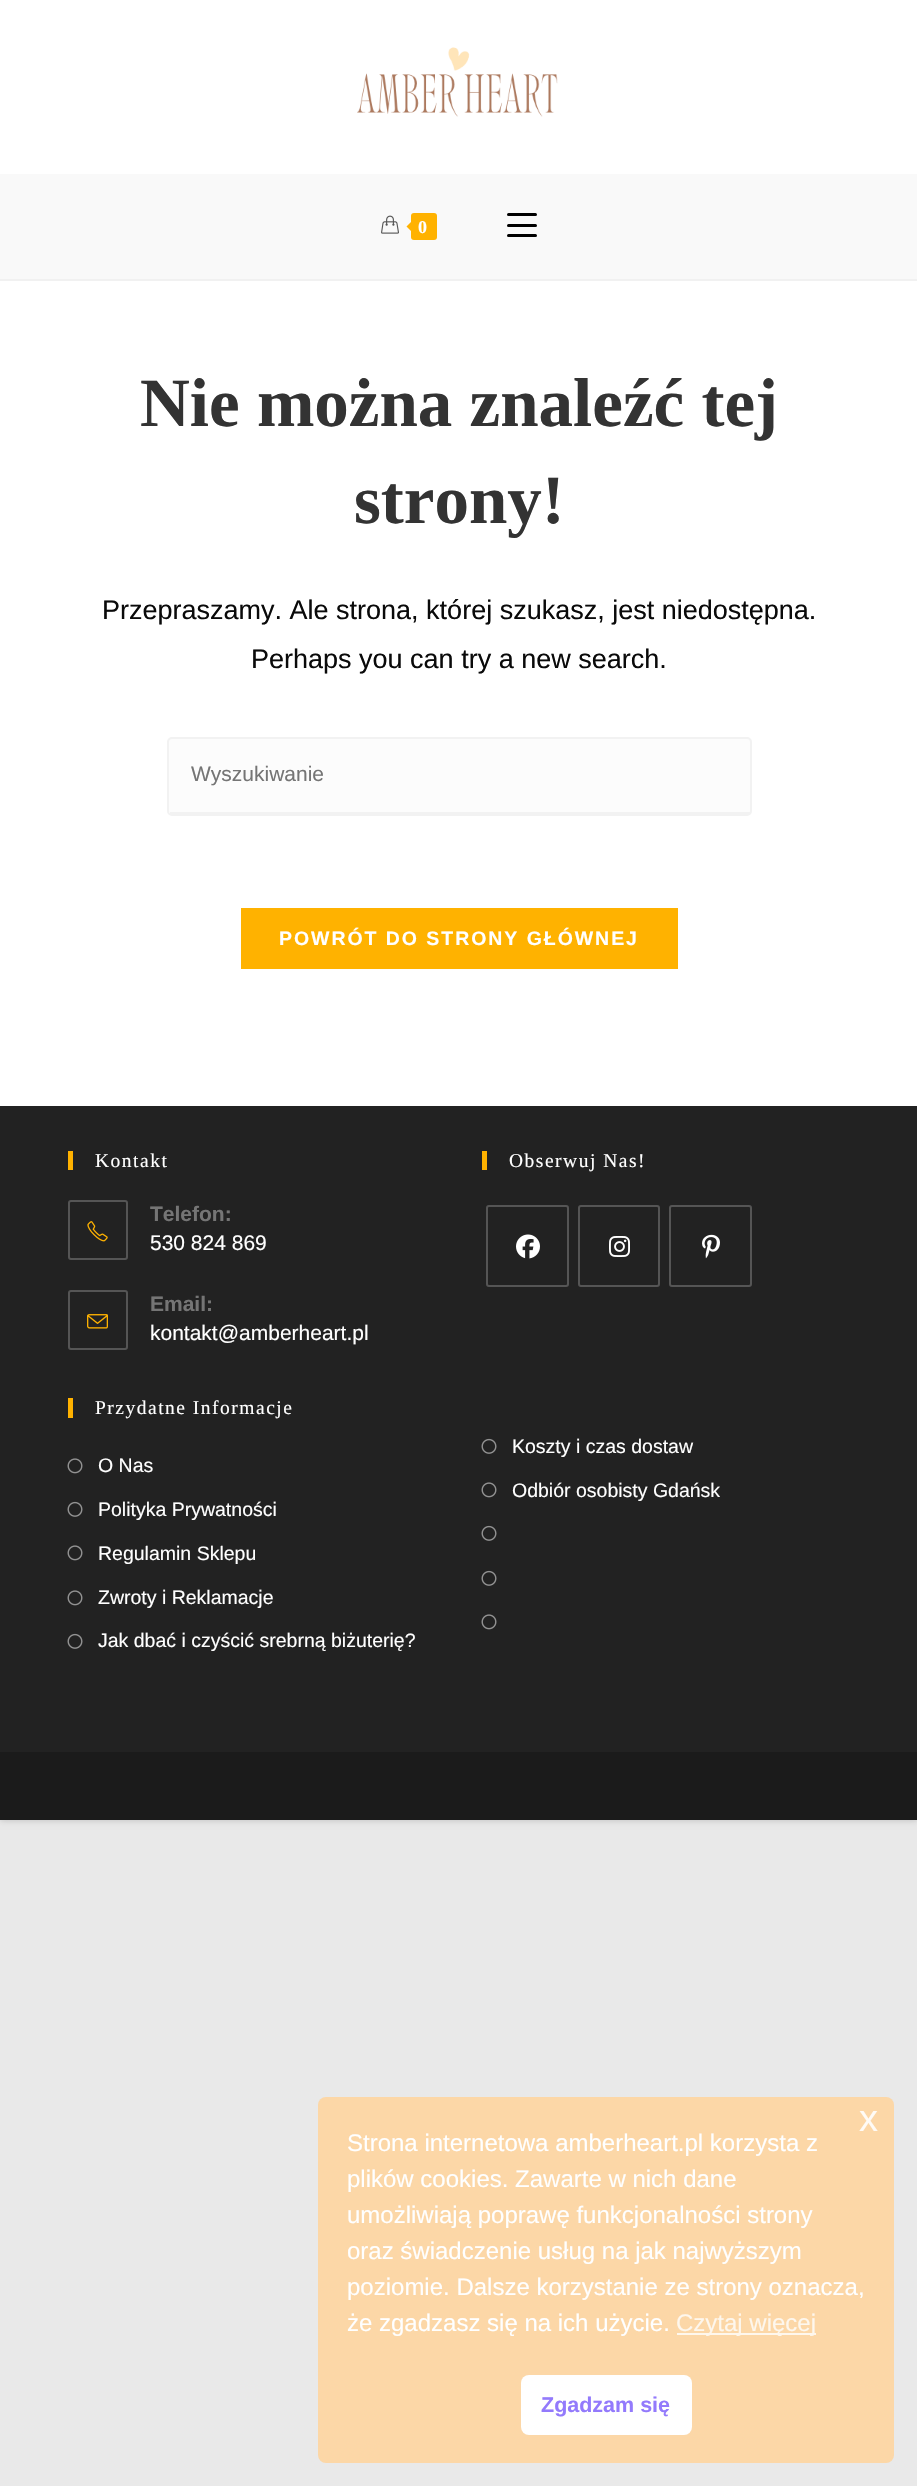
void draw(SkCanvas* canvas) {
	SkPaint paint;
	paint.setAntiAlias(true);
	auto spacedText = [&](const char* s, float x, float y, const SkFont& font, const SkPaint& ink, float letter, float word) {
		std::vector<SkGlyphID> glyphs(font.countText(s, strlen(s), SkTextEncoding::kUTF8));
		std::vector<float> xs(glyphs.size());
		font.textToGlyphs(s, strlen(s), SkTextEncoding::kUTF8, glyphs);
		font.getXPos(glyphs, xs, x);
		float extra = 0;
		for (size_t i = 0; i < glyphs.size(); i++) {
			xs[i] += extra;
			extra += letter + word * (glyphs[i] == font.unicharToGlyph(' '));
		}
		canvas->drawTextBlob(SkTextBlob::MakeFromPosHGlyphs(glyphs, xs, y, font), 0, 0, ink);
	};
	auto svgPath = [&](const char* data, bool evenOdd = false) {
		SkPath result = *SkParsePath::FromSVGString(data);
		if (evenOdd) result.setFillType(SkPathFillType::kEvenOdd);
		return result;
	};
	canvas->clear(0xffe9e9e9);
	paint.setColor(0x26000000);
	paint.setMaskFilter(SkMaskFilter::MakeBlur(kNormal_SkBlurStyle, 3));
	canvas->drawRect(SkRect::MakeXYWH(0, 2, 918, 1819), paint);
	paint.setMaskFilter(nullptr);
	paint.setColor(0xffffffff);
	canvas->drawRect(SkRect::MakeXYWH(0, 0, 917, 1106), paint);
	paint.setColor(0xfff1f1f1);
	canvas->drawRect(SkRect::MakeXYWH(0, 279, 917, 2), paint);
	canvas->drawImageRect(SkImages::DeferredFromEncodedData(SkData::MakeFromFileName("img1.png")), SkRect::MakeXYWH(357, 47, 201, 70), SkSamplingOptions());
	paint.setColor(0xfff9f9f9);
	canvas->drawRect(SkRect::MakeXYWH(0, 174, 917, 105), paint);
	canvas->drawImageRect(SkImages::DeferredFromEncodedData(SkData::MakeFromFileName("img2.png")), SkRect::MakeXYWH(381, 215, 18, 19), SkSamplingOptions());
	paint.setColor(0xffffb200);
	canvas->drawRoundRect(SkRect::MakeXYWH(411, 213, 26, 27), 3, 3, paint);
	canvas->drawPath(svgPath("M414 219V234L406.5 226.5Z"), paint);
	SkFont f1(fontMgr->matchFamilyStyle("Liberation Serif", SkFontStyle::Bold()), 18);
	f1.setSubpixel(true);
	paint.setColor(0xffffffff);
	spacedText("0", 418, 233, f1, paint, 1.5, 0);
	paint.setColor(0xff000000);
	canvas->drawRoundRect(SkRect::MakeXYWH(507, 234, 30, 3), 1.5, 1.5, paint);
	canvas->drawRoundRect(SkRect::MakeXYWH(507, 213, 30, 3), 1.5, 1.5, paint);
	canvas->drawRoundRect(SkRect::MakeXYWH(507, 224, 30, 3), 1.5, 1.5, paint);
	SkFont f2(fontMgr->matchFamilyStyle("Liberation Serif", SkFontStyle::Bold()), 69);
	f2.setSubpixel(true);
	paint.setColor(0xff333333);
	canvas->drawString("Nie można znaleźć tej", 140, 426, f2, paint);
	canvas->drawString("strony!", 354, 523, f2, paint);
	SkFont f3(fontMgr->matchFamilyStyle("Liberation Sans", SkFontStyle::Normal()), 27);
	f3.setSubpixel(true);
	paint.setColor(0xff0a0a0a);
	canvas->drawString("Przepraszamy. Ale strona, której szukasz, jest niedostępna.", 102, 619, f3, paint);
	canvas->drawString("Perhaps you can try a new search.", 251, 668, f3, paint);
	paint.setColor(0xfffcfcfc);
	canvas->drawPath(svgPath("M171 738H747C749 738 750 739 750 741V812H168V741C168 739 169 738 171 738Z"), paint);
	paint.setStroke(true);
	paint.setStrokeWidth(2);
	paint.setColor(0xfff2f2f2);
	canvas->drawRoundRect(SkRect::MakeXYWH(168, 738, 583, 77), 4, 4, paint);
	paint.setStroke(false);
	canvas->drawRect(SkRect::MakeXYWH(170, 812, 580, 2), paint);
	SkFont f4(fontMgr->matchFamilyStyle("Liberation Sans", SkFontStyle::Normal()), 21);
	f4.setSubpixel(true);
	paint.setColor(0xff757575);
	canvas->drawString("Wyszukiwanie", 191, 781, f4, paint);
	paint.setColor(0xffffb200);
	canvas->drawRect(SkRect::MakeXYWH(241, 908, 437, 61), paint);
	SkFont f5(fontMgr->matchFamilyStyle("Liberation Sans", SkFontStyle::Bold()), 19.5);
	f5.setSubpixel(true);
	paint.setColor(0xffffffff);
	spacedText("POWRÓT DO STRONY GŁÓWNEJ", 279, 945, f5, paint, 1.95, 0);
	paint.setColor(0xff222222);
	canvas->drawRect(SkRect::MakeXYWH(0, 1106, 917, 646), paint);
	paint.setColor(0xffffb200);
	canvas->drawRect(SkRect::MakeXYWH(68, 1151, 5, 19), paint);
	SkFont f6(fontMgr->matchFamilyStyle("Liberation Serif", SkFontStyle::Normal()), 19.5);
	f6.setSubpixel(true);
	paint.setColor(0xffffffff);
	spacedText("Kontakt", 95, 1167, f6, paint, 1.5, 0);
	paint.setStroke(true);
	paint.setColor(0xff555555);
	canvas->drawRoundRect(SkRect::MakeXYWH(69, 1201, 58, 58), 2, 2, paint);
	canvas->drawImageRect(SkImages::DeferredFromEncodedData(SkData::MakeFromFileName("img3.png")), SkRect::MakeXYWH(87, 1221, 21, 21), SkSamplingOptions());
	SkFont f7(fontMgr->matchFamilyStyle("Liberation Sans", SkFontStyle::Bold()), 21);
	f7.setSubpixel(true);
	paint.setStroke(false);
	paint.setColor(0xff757575);
	canvas->drawString("Telefon:", 150, 1221, f7, paint);
	paint.setColor(0xffffffff);
	canvas->drawString("530 824 869", 150, 1250, f4, paint);
	paint.setStroke(true);
	paint.setColor(0xff555555);
	canvas->drawRoundRect(SkRect::MakeXYWH(69, 1291, 58, 58), 2, 2, paint);
	canvas->drawImageRect(SkImages::DeferredFromEncodedData(SkData::MakeFromFileName("img4.png")), SkRect::MakeXYWH(87, 1314, 21, 15), SkSamplingOptions());
	paint.setStroke(false);
	paint.setColor(0xff757575);
	canvas->drawString("Email:", 150, 1311, f7, paint);
	paint.setColor(0xffffffff);
	canvas->drawString("kontakt@amberheart.pl", 150, 1340, f4, paint);
	paint.setColor(0xffffb200);
	canvas->drawRect(SkRect::MakeXYWH(482, 1151, 5, 19), paint);
	paint.setColor(0xffffffff);
	spacedText("Obserwuj Nas!", 509, 1167, f6, paint, 1.5, 0);
	paint.setStroke(true);
	paint.setColor(0xff555555);
	canvas->drawRoundRect(SkRect::MakeXYWH(487, 1206, 81, 80), 2, 2, paint);
	canvas->drawImageRect(SkImages::DeferredFromEncodedData(SkData::MakeFromFileName("img5.png")), SkRect::MakeXYWH(516, 1234, 24, 25), SkSamplingOptions());
	canvas->drawRoundRect(SkRect::MakeXYWH(579, 1206, 80, 80), 2, 2, paint);
	canvas->drawImageRect(SkImages::DeferredFromEncodedData(SkData::MakeFromFileName("img6.png")), SkRect::MakeXYWH(609, 1236, 21, 21), SkSamplingOptions());
	canvas->drawRoundRect(SkRect::MakeXYWH(670, 1206, 81, 80), 2, 2, paint);
	canvas->drawImageRect(SkImages::DeferredFromEncodedData(SkData::MakeFromFileName("img7.png")), SkRect::MakeXYWH(702, 1234, 18, 25), SkSamplingOptions());
	paint.setStroke(false);
	paint.setColor(0xffffb200);
	canvas->drawRect(SkRect::MakeXYWH(68, 1398, 5, 20), paint);
	paint.setColor(0xffffffff);
	spacedText("Przydatne Informacje", 95, 1414, f6, paint, 1.5, 0);
	canvas->drawImageRect(SkImages::DeferredFromEncodedData(SkData::MakeFromFileName("img8.png")), SkRect::MakeXYWH(67, 1458, 16, 16), SkSamplingOptions());
	SkFont f8(fontMgr->matchFamilyStyle("Liberation Sans", SkFontStyle::Normal()), 19.5);
	f8.setSubpixel(true);
	canvas->drawString("O Nas", 98, 1472, f8, paint);
	canvas->drawImageRect(SkImages::DeferredFromEncodedData(SkData::MakeFromFileName("img9.png")), SkRect::MakeXYWH(67, 1501, 16, 16), SkSamplingOptions());
	canvas->drawString("Polityka Prywatności", 98, 1516, f8, paint);
	canvas->drawImageRect(SkImages::DeferredFromEncodedData(SkData::MakeFromFileName("img8.png")), SkRect::MakeXYWH(67, 1545, 16, 16), SkSamplingOptions());
	canvas->drawString("Regulamin Sklepu", 98, 1560, f8, paint);
	canvas->drawImageRect(SkImages::DeferredFromEncodedData(SkData::MakeFromFileName("img8.png")), SkRect::MakeXYWH(67, 1590, 16, 16), SkSamplingOptions());
	canvas->drawString("Zwroty i Reklamacje", 98, 1604, f8, paint);
	canvas->drawImageRect(SkImages::DeferredFromEncodedData(SkData::MakeFromFileName("img9.png")), SkRect::MakeXYWH(67, 1633, 16, 16), SkSamplingOptions());
	canvas->drawString("Jak dbać i czyścić srebrną biżuterię?", 98, 1647, f8, paint);
	canvas->drawImageRect(SkImages::DeferredFromEncodedData(SkData::MakeFromFileName("img9.png")), SkRect::MakeXYWH(481, 1438, 16, 16), SkSamplingOptions());
	canvas->drawString("Koszty i czas dostaw", 512, 1453, f8, paint);
	canvas->drawImageRect(SkImages::DeferredFromEncodedData(SkData::MakeFromFileName("img8.png")), SkRect::MakeXYWH(481, 1482, 16, 16), SkSamplingOptions());
	canvas->drawString("Odbiór osobisty Gdańsk", 512, 1497, f8, paint);
	canvas->drawImageRect(SkImages::DeferredFromEncodedData(SkData::MakeFromFileName("img9.png")), SkRect::MakeXYWH(481, 1525, 16, 16), SkSamplingOptions());
	canvas->drawImageRect(SkImages::DeferredFromEncodedData(SkData::MakeFromFileName("img9.png")), SkRect::MakeXYWH(481, 1570, 16, 16), SkSamplingOptions());
	canvas->drawImageRect(SkImages::DeferredFromEncodedData(SkData::MakeFromFileName("img8.png")), SkRect::MakeXYWH(481, 1614, 16, 16), SkSamplingOptions());
	paint.setColor(0xff1b1b1b);
	canvas->drawRect(SkRect::MakeXYWH(0, 1752, 917, 68), paint);
	paint.setColor(0xfffcd7a7);
	canvas->drawRoundRect(SkRect::MakeXYWH(318, 2097, 576, 366), 8, 8, paint);
	SkFont f9(fontMgr->matchFamilyStyle("Liberation Sans", SkFontStyle::Normal()), 38);
	f9.setSubpixel(true);
	paint.setColor(0xfffffbf6);
	canvas->drawString("x", 859, 2131, f9, paint);
	SkFont f10(fontMgr->matchFamilyStyle("Liberation Sans", SkFontStyle::Normal()), 24);
	f10.setSubpixel(true);
	paint.setColor(0xffffffff);
	canvas->drawString("Strona internetowa amberheart.pl korzysta z", 347, 2151, f10, paint);
	canvas->drawString("plików cookies. Zawarte w nich dane", 347, 2187, f10, paint);
	canvas->drawString("umożliwiają poprawę funkcjonalności strony", 347, 2223, f10, paint);
	canvas->drawString("oraz świadczenie usług na jak najwyższym", 347, 2259, f10, paint);
	canvas->drawString("poziomie. Dalsze korzystanie ze strony oznacza,", 347, 2295, f10, paint);
	canvas->drawString("że zgadzasz się na ich użycie.", 347, 2331, f10, paint);
	paint.setColor(0xfffef7ed);
	canvas->drawRect(SkRect::MakeXYWH(677, 2333, 139, 2), paint);
	canvas->drawString("Czytaj więcej", 676, 2331, f10, paint);
	paint.setColor(0xffffffff);
	canvas->drawRoundRect(SkRect::MakeXYWH(521, 2375, 171, 60), 8, 8, paint);
	SkFont f11(fontMgr->matchFamilyStyle("Liberation Sans", SkFontStyle::Bold()), 21.5);
	f11.setSubpixel(true);
	paint.setColor(0xff937afc);
	canvas->drawString("Zgadzam się", 541, 2412, f11, paint);
}
